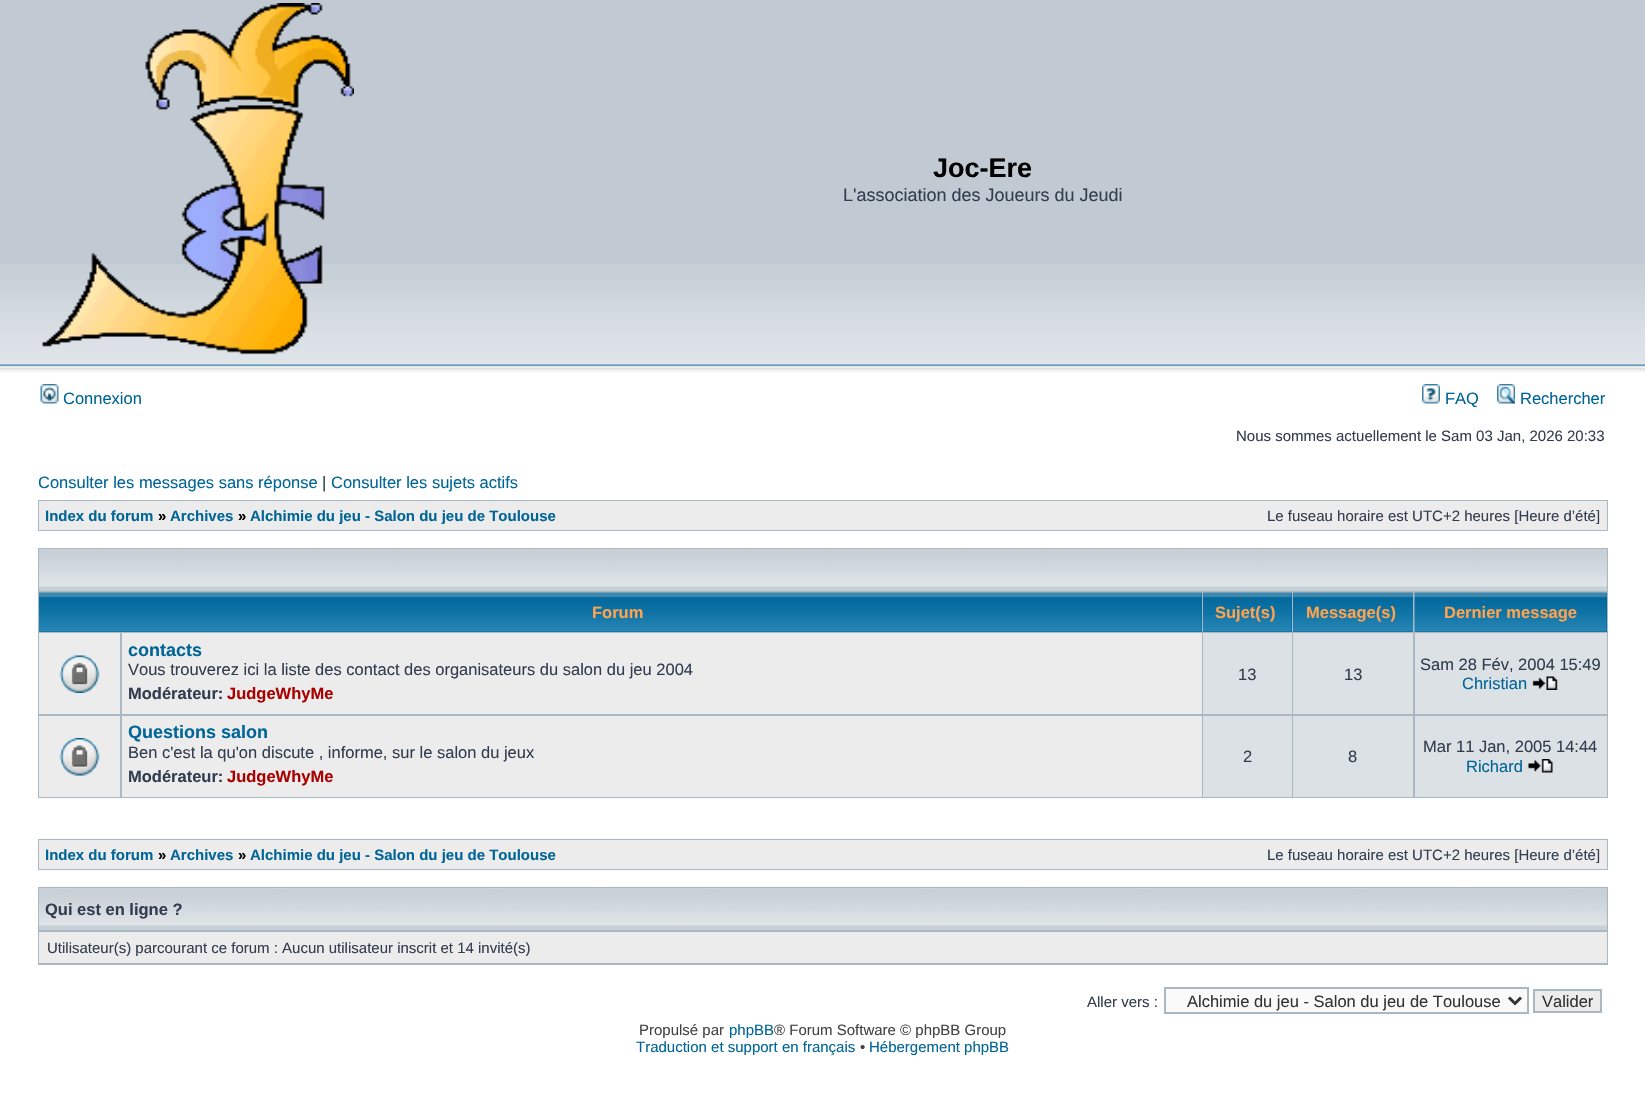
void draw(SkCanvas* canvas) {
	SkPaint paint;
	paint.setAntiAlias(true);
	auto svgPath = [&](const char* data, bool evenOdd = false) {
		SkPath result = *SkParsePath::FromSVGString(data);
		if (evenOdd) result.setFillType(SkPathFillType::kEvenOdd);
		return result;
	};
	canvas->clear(0xffffffff);
	paint.setColor(0xffc1cad2);
	canvas->drawRect(SkRect::MakeXYWH(0, 0, 1645, 264), paint);
	canvas->drawImageRect(SkImages::DeferredFromEncodedData(SkData::MakeFromFileName("img1.png")), SkRect::MakeXYWH(0, 264, 1645, 117), SkSamplingOptions());
	canvas->drawImageRect(SkImages::DeferredFromEncodedData(SkData::MakeFromFileName("img2.png")), SkRect::MakeXYWH(42, 3, 312, 352), SkSamplingOptions());
	SkFont f1(fontMgr->matchFamilyStyle("Liberation Sans", SkFontStyle::Bold()), 27);
	f1.setSubpixel(true);
	paint.setColor(0xff000000);
	canvas->drawString("Joc-Ere", 933, 177, f1, paint);
	SkFont f2(fontMgr->matchFamilyStyle("Liberation Sans", SkFontStyle::Normal()), 18);
	f2.setSubpixel(true);
	paint.setColor(0xff323d4f);
	canvas->drawString("L'association des Joueurs du Jeudi", 843, 201, f2, paint);
	canvas->drawImageRect(SkImages::DeferredFromEncodedData(SkData::MakeFromFileName("img3.png")), SkRect::MakeXYWH(40, 384, 19, 20), SkSamplingOptions());
	SkFont f3(fontMgr->matchFamilyStyle("Liberation Sans", SkFontStyle::Normal()), 16.5);
	f3.setSubpixel(true);
	paint.setColor(0xff006597);
	canvas->drawString("Connexion", 63, 404, f3, paint);
	canvas->drawImageRect(SkImages::DeferredFromEncodedData(SkData::MakeFromFileName("img4.png")), SkRect::MakeXYWH(1422, 384, 18, 20), SkSamplingOptions());
	canvas->drawString("FAQ", 1445, 404, f3, paint);
	canvas->drawImageRect(SkImages::DeferredFromEncodedData(SkData::MakeFromFileName("img5.png")), SkRect::MakeXYWH(1497, 384, 18, 20), SkSamplingOptions());
	canvas->drawString("Rechercher", 1520, 404, f3, paint);
	SkFont f4(fontMgr->matchFamilyStyle("Liberation Sans", SkFontStyle::Normal()), 15);
	f4.setSubpixel(true);
	paint.setColor(0xff323d4f);
	canvas->drawString("Nous sommes actuellement le Sam 03 Jan, 2026 20:33", 1236, 441, f4, paint);
	paint.setColor(0xff006597);
	canvas->drawString("Consulter les messages sans réponse", 38, 488, f3, paint);
	paint.setColor(0xff323d4f);
	canvas->drawString("|", 322, 488, f3, paint);
	paint.setColor(0xff006597);
	canvas->drawString("Consulter les sujets actifs", 331, 488, f3, paint);
	paint.setColor(0xffa9b8c2);
	canvas->drawRect(SkRect::MakeXYWH(38, 500, 1570, 31), paint);
	paint.setColor(0xffececec);
	canvas->drawRect(SkRect::MakeXYWH(39, 501, 1568, 29), paint);
	SkFont f5(fontMgr->matchFamilyStyle("Liberation Sans", SkFontStyle::Bold()), 15);
	f5.setSubpixel(true);
	paint.setColor(0xff006597);
	canvas->drawString("Index du forum", 45, 521, f5, paint);
	paint.setColor(0xff000000);
	canvas->drawString("»", 158, 521, f5, paint);
	paint.setColor(0xff006597);
	canvas->drawString("Archives", 170, 521, f5, paint);
	paint.setColor(0xff000000);
	canvas->drawString("»", 238, 521, f5, paint);
	paint.setColor(0xff006597);
	canvas->drawString("Alchimie du jeu - Salon du jeu de Toulouse", 250, 521, f5, paint);
	paint.setColor(0xff323d4f);
	canvas->drawString("Le fuseau horaire est UTC+2 heures [Heure d’été]", 1267, 521, f4, paint);
	paint.setColor(0xffa9b8c2);
	canvas->drawRect(SkRect::MakeXYWH(38, 548, 1570, 250), paint);
	paint.setColor(0xffc7d0d7);
	canvas->drawRect(SkRect::MakeXYWH(39, 549, 1568, 42), paint);
	canvas->drawImageRect(SkImages::DeferredFromEncodedData(SkData::MakeFromFileName("img6.png")), SkRect::MakeXYWH(39, 549, 1568, 38), SkSamplingOptions());
	paint.setColor(0xff006699);
	canvas->drawRect(SkRect::MakeXYWH(39, 593, 1163, 39), paint);
	canvas->drawImageRect(SkImages::DeferredFromEncodedData(SkData::MakeFromFileName("img7.png")), SkRect::MakeXYWH(39, 592, 1163, 40), SkSamplingOptions());
	SkFont f6(fontMgr->matchFamilyStyle("Liberation Sans", SkFontStyle::Bold()), 16.5);
	f6.setSubpixel(true);
	paint.setColor(0xffffa34f);
	canvas->drawString("Forum", 592, 618, f6, paint);
	paint.setColor(0xff006699);
	canvas->drawRect(SkRect::MakeXYWH(1203, 593, 89, 39), paint);
	canvas->drawImageRect(SkImages::DeferredFromEncodedData(SkData::MakeFromFileName("img8.png")), SkRect::MakeXYWH(1203, 592, 89, 40), SkSamplingOptions());
	paint.setColor(0xffffa34f);
	canvas->drawString("Sujet(s)", 1215, 618, f6, paint);
	paint.setColor(0xff006699);
	canvas->drawRect(SkRect::MakeXYWH(1293, 631, 120, 1), paint);
	canvas->drawImageRect(SkImages::DeferredFromEncodedData(SkData::MakeFromFileName("img9.png")), SkRect::MakeXYWH(1293, 592, 120, 40), SkSamplingOptions());
	paint.setColor(0xffffa34f);
	canvas->drawString("Message(s)", 1306, 618, f6, paint);
	paint.setColor(0xff006699);
	canvas->drawRect(SkRect::MakeXYWH(1415, 593, 192, 39), paint);
	canvas->drawImageRect(SkImages::DeferredFromEncodedData(SkData::MakeFromFileName("img10.png")), SkRect::MakeXYWH(1414, 592, 193, 40), SkSamplingOptions());
	paint.setColor(0xffffa34f);
	canvas->drawString("Dernier message", 1444, 618, f6, paint);
	paint.setColor(0xffececec);
	canvas->drawRect(SkRect::MakeXYWH(39, 633, 81, 81), paint);
	canvas->drawImageRect(SkImages::DeferredFromEncodedData(SkData::MakeFromFileName("img11.png")), SkRect::MakeXYWH(59, 655, 41, 38), SkSamplingOptions());
	canvas->drawRect(SkRect::MakeXYWH(122, 633, 1080, 81), paint);
	SkFont f7(fontMgr->matchFamilyStyle("Liberation Sans", SkFontStyle::Bold()), 18);
	f7.setSubpixel(true);
	paint.setColor(0xff006597);
	canvas->drawString("contacts", 128, 656, f7, paint);
	paint.setColor(0xff323d4f);
	canvas->drawString("Vous trouverez ici la liste des contact des organisateurs du salon du jeu 2004", 128, 675, f3, paint);
	canvas->drawString("Modérateur:", 128, 699, f6, paint);
	paint.setColor(0xffaa0000);
	canvas->drawString("JudgeWhyMe", 227, 699, f6, paint);
	paint.setColor(0xffdce1e5);
	canvas->drawRect(SkRect::MakeXYWH(1203, 633, 89, 81), paint);
	paint.setColor(0xff323d4f);
	canvas->drawString("13", 1238, 680, f3, paint);
	paint.setColor(0xffdce1e5);
	canvas->drawRect(SkRect::MakeXYWH(1293, 633, 120, 81), paint);
	paint.setColor(0xff323d4f);
	canvas->drawString("13", 1344, 680, f3, paint);
	paint.setColor(0xffdce1e5);
	canvas->drawRect(SkRect::MakeXYWH(1415, 633, 192, 81), paint);
	paint.setColor(0xff323d4f);
	canvas->drawString("Sam 28 Fév, 2004 15:49", 1420, 670, f3, paint);
	paint.setColor(0xff006597);
	canvas->drawString("Christian", 1462, 689, f3, paint);
	canvas->drawImageRect(SkImages::DeferredFromEncodedData(SkData::MakeFromFileName("img12.png")), SkRect::MakeXYWH(1532, 676, 26, 14), SkSamplingOptions());
	paint.setColor(0xffececec);
	canvas->drawRect(SkRect::MakeXYWH(39, 716, 81, 81), paint);
	canvas->drawImageRect(SkImages::DeferredFromEncodedData(SkData::MakeFromFileName("img13.png")), SkRect::MakeXYWH(59, 738, 41, 38), SkSamplingOptions());
	canvas->drawRect(SkRect::MakeXYWH(122, 716, 1080, 81), paint);
	paint.setColor(0xff006597);
	canvas->drawString("Questions salon", 128, 738, f7, paint);
	paint.setColor(0xff323d4f);
	canvas->drawString("Ben c'est la qu'on discute , informe, sur le salon du jeux", 128, 758, f3, paint);
	canvas->drawString("Modérateur:", 128, 782, f6, paint);
	paint.setColor(0xffaa0000);
	canvas->drawString("JudgeWhyMe", 227, 782, f6, paint);
	paint.setColor(0xffdce1e5);
	canvas->drawRect(SkRect::MakeXYWH(1203, 716, 89, 81), paint);
	paint.setColor(0xff323d4f);
	canvas->drawString("2", 1243, 762, f3, paint);
	paint.setColor(0xffdce1e5);
	canvas->drawRect(SkRect::MakeXYWH(1293, 716, 120, 81), paint);
	paint.setColor(0xff323d4f);
	canvas->drawString("8", 1348, 762, f3, paint);
	paint.setColor(0xffdce1e5);
	canvas->drawRect(SkRect::MakeXYWH(1415, 716, 192, 81), paint);
	paint.setColor(0xff323d4f);
	canvas->drawString("Mar 11 Jan, 2005 14:44", 1423, 752, f3, paint);
	paint.setColor(0xff006597);
	canvas->drawString("Richard", 1466, 772, f3, paint);
	canvas->drawImageRect(SkImages::DeferredFromEncodedData(SkData::MakeFromFileName("img14.png")), SkRect::MakeXYWH(1528, 759, 25, 14), SkSamplingOptions());
	paint.setColor(0xffa9b8c2);
	canvas->drawRect(SkRect::MakeXYWH(38, 839, 1570, 31), paint);
	paint.setColor(0xffececec);
	canvas->drawRect(SkRect::MakeXYWH(39, 840, 1568, 29), paint);
	paint.setColor(0xff006597);
	canvas->drawString("Index du forum", 45, 860, f5, paint);
	paint.setColor(0xff000000);
	canvas->drawString("»", 158, 860, f5, paint);
	paint.setColor(0xff006597);
	canvas->drawString("Archives", 170, 860, f5, paint);
	paint.setColor(0xff000000);
	canvas->drawString("»", 238, 860, f5, paint);
	paint.setColor(0xff006597);
	canvas->drawString("Alchimie du jeu - Salon du jeu de Toulouse", 250, 860, f5, paint);
	paint.setColor(0xff323d4f);
	canvas->drawString("Le fuseau horaire est UTC+2 heures [Heure d’été]", 1267, 860, f4, paint);
	paint.setColor(0xffa9b8c2);
	canvas->drawRect(SkRect::MakeXYWH(38, 887, 1570, 78), paint);
	paint.setColor(0xffc7d0d7);
	canvas->drawRect(SkRect::MakeXYWH(39, 888, 1568, 42), paint);
	canvas->drawImageRect(SkImages::DeferredFromEncodedData(SkData::MakeFromFileName("img6.png")), SkRect::MakeXYWH(39, 888, 1568, 38), SkSamplingOptions());
	paint.setColor(0xff323d4f);
	canvas->drawString("Qui est en ligne ?", 45, 915, f6, paint);
	paint.setColor(0xffececec);
	canvas->drawRect(SkRect::MakeXYWH(39, 932, 1568, 31), paint);
	paint.setColor(0xff323d4f);
	canvas->drawString("Utilisateur(s) parcourant ce forum : Aucun utilisateur inscrit et 14 invité(s)", 47, 953, f4, paint);
	canvas->drawString("Aller vers :", 1087, 1007, f4, paint);
	paint.setColor(0xfffafafa);
	canvas->drawRect(SkRect::MakeXYWH(1165, 988, 363, 25), paint);
	paint.setStroke(true);
	paint.setStrokeWidth(2);
	paint.setColor(0xffa9b8c2);
	canvas->drawRect(SkRect::MakeXYWH(1165, 988, 363, 25), paint);
	paint.setStrokeWidth(3);
	paint.setColor(0xff333333);
	canvas->drawPath(svgPath("M1509 997.5L1515 1003.5L1521 997.5"), paint);
	paint.setStroke(false);
	canvas->drawString("Alchimie du jeu - Salon du jeu de Toulouse", 1187, 1007, f3, paint);
	paint.setColor(0xffececec);
	canvas->drawRect(SkRect::MakeXYWH(1534, 990, 67, 22), paint);
	paint.setStroke(true);
	paint.setStrokeWidth(2);
	paint.setColor(0xffa9b8c2);
	canvas->drawRect(SkRect::MakeXYWH(1534, 990, 67, 22), paint);
	paint.setStroke(false);
	paint.setColor(0xff333333);
	canvas->drawString("Valider", 1542, 1007, f3, paint);
	paint.setColor(0xff444444);
	canvas->drawString("Propulsé par", 639, 1035, f4, paint);
	paint.setColor(0xff006597);
	canvas->drawString("phpBB", 729, 1035, f4, paint);
	paint.setColor(0xff444444);
	canvas->drawString("® Forum Software © phpBB Group", 774, 1035, f4, paint);
	paint.setColor(0xff006597);
	canvas->drawString("Traduction et support en français", 636, 1052, f4, paint);
	paint.setColor(0xff444444);
	canvas->drawString("•", 860, 1052, f4, paint);
	paint.setColor(0xff006597);
	canvas->drawString("Hébergement phpBB", 869, 1052, f4, paint);
}
